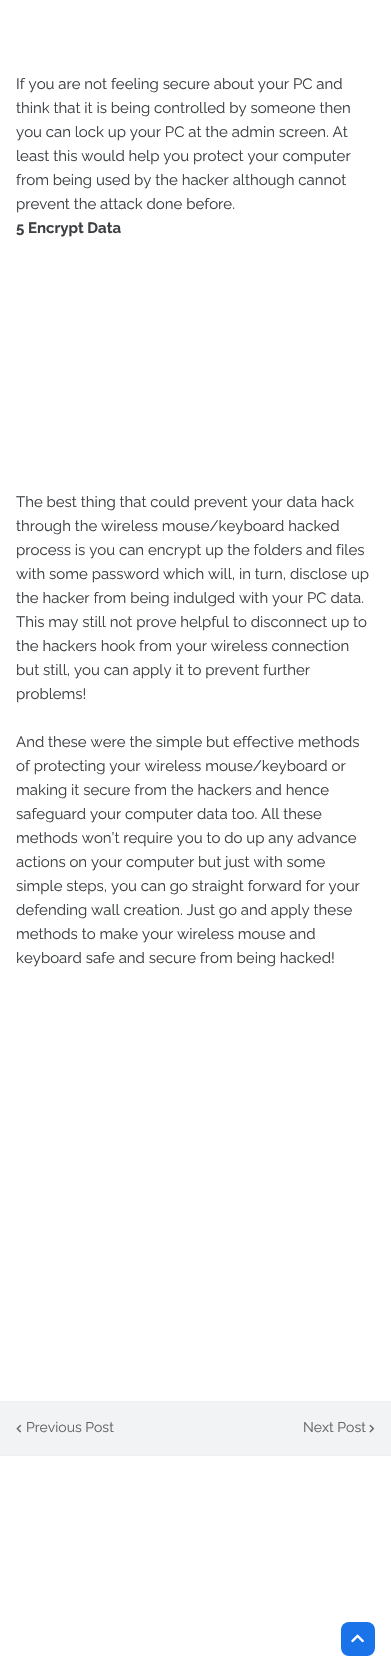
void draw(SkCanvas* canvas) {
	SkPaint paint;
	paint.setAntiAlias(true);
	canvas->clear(0xfff1f3f4);
	paint.setColor(0xffffffff);
	canvas->drawRect(SkRect::MakeXYWH(0, 0, 391, 1401), paint);
	paint.setColor(0xfff0f0f0);
	canvas->drawRect(SkRect::MakeXYWH(0, 1401, 391, 1), paint);
	SkFont f1(fontMgr->matchFamilyStyle("Raleway", SkFontStyle::Normal()), 15);
	f1.setSubpixel(true);
	paint.setColor(0xff3c4043);
	canvas->drawString("If you are not feeling secure about your PC and", 16, 89, f1, paint);
	canvas->drawString("think that it is being controlled by someone then", 16, 113, f1, paint);
	canvas->drawString("you can lock up your PC at the admin screen. At", 16, 137, f1, paint);
	canvas->drawString("least this would help you protect your computer", 16, 161, f1, paint);
	canvas->drawString("from being used by the hacker although cannot", 16, 185, f1, paint);
	canvas->drawString("prevent the attack done before.", 16, 209, f1, paint);
	SkFont f2(fontMgr->matchFamilyStyle("Raleway", SkFontStyle::Bold()), 15);
	f2.setSubpixel(true);
	canvas->drawString("5 Encrypt Data", 16, 233, f2, paint);
	canvas->drawString("The best thing that could prevent your data hack", 16, 507, f1, paint);
	canvas->drawString("through the wireless mouse/keyboard hacked", 16, 531, f1, paint);
	canvas->drawString("process is you can encrypt up the folders and files", 16, 555, f1, paint);
	canvas->drawString("with some password which will, in turn, disclose up", 16, 579, f1, paint);
	canvas->drawString("the hacker from being indulged with your PC data.", 16, 603, f1, paint);
	canvas->drawString("This may still not prove helpful to disconnect up to", 16, 627, f1, paint);
	canvas->drawString("the hackers hook from your wireless connection", 16, 651, f1, paint);
	canvas->drawString("but still, you can apply it to prevent further", 16, 675, f1, paint);
	canvas->drawString("problems!", 16, 699, f1, paint);
	canvas->drawString("And these were the simple but effective methods", 16, 747, f1, paint);
	canvas->drawString("of protecting your wireless mouse/keyboard or", 16, 771, f1, paint);
	canvas->drawString("making it secure from the hackers and hence", 16, 795, f1, paint);
	canvas->drawString("safeguard your computer data too. All these", 16, 819, f1, paint);
	canvas->drawString("methods won’t require you to do up any advance", 16, 843, f1, paint);
	canvas->drawString("actions on your computer but just with some", 16, 867, f1, paint);
	canvas->drawString("simple steps, you can go straight forward for your", 16, 891, f1, paint);
	canvas->drawString("defending wall creation. Just go and apply these", 16, 915, f1, paint);
	canvas->drawString("methods to make your wireless mouse and", 16, 939, f1, paint);
	canvas->drawString("keyboard safe and secure from being hacked!", 16, 963, f1, paint);
	canvas->drawImageRect(SkImages::DeferredFromEncodedData(SkData::MakeFromFileName("img1.png")), SkRect::MakeXYWH(16, 1424, 6, 9), SkSamplingOptions());
	SkFont f3(fontMgr->matchFamilyStyle("Raleway", SkFontStyle::Normal()), 14);
	f3.setSubpixel(true);
	paint.setColor(0xff636466);
	canvas->drawString("Previous Post", 26, 1432, f3, paint);
	canvas->drawString("Next Post", 303, 1432, f3, paint);
	canvas->drawImageRect(SkImages::DeferredFromEncodedData(SkData::MakeFromFileName("img2.png")), SkRect::MakeXYWH(369, 1424, 6, 9), SkSamplingOptions());
	paint.setColor(0xffffffff);
	canvas->drawRect(SkRect::MakeXYWH(0, 1456, 391, 216), paint);
	paint.setColor(0xfff0f0f0);
	canvas->drawRect(SkRect::MakeXYWH(0, 1455, 391, 1), paint);
	paint.setColor(0xff1a73e8);
	canvas->drawRoundRect(SkRect::MakeXYWH(341, 1622, 34, 34), 8, 8, paint);
	canvas->drawImageRect(SkImages::DeferredFromEncodedData(SkData::MakeFromFileName("img3.png")), SkRect::MakeXYWH(351, 1634, 13, 9), SkSamplingOptions());
}
